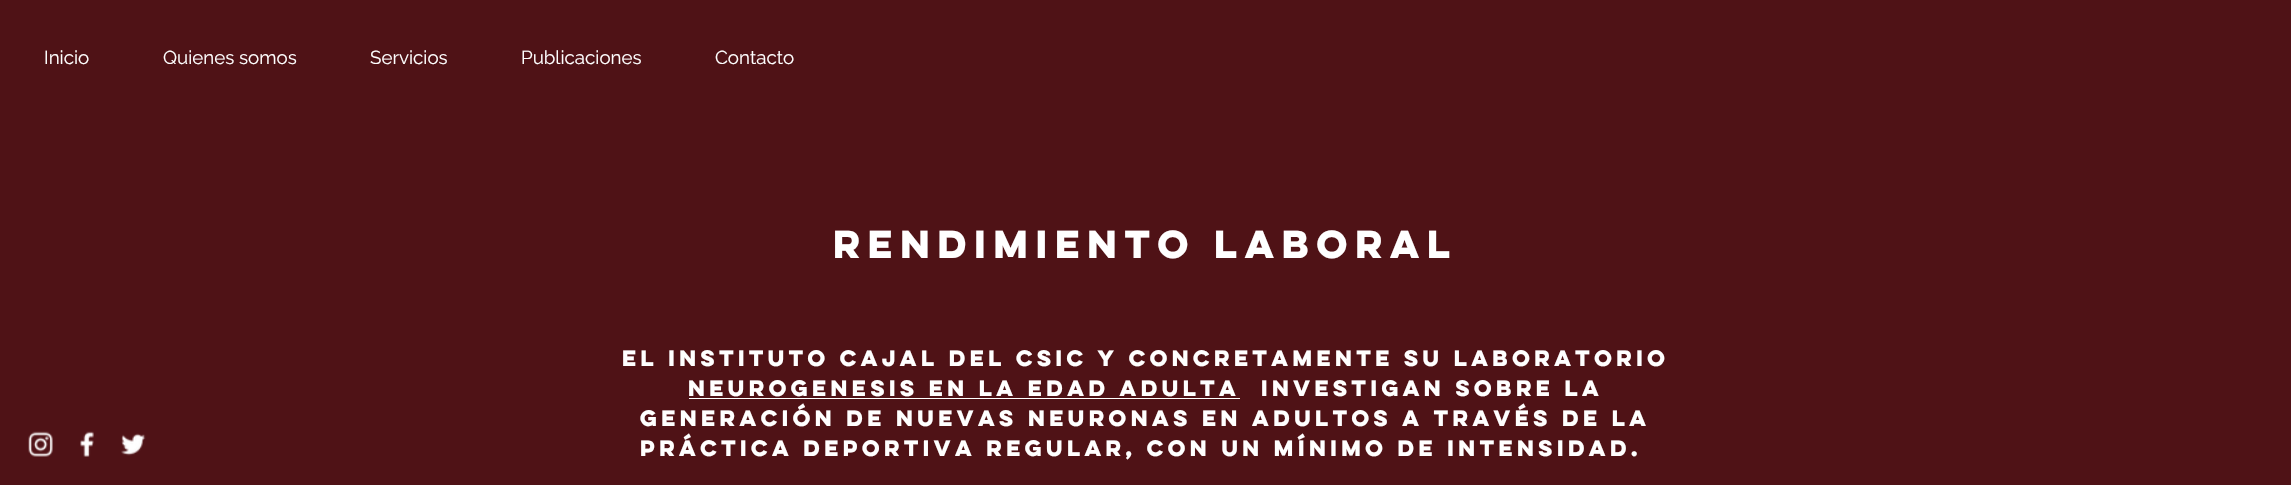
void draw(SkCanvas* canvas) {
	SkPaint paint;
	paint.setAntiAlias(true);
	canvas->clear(0xff4f1216);
	SkFont f1(fontMgr->matchFamilyStyle("Raleway", SkFontStyle::Normal()), 18.75);
	f1.setSubpixel(true);
	paint.setColor(0xffffffff);
	canvas->drawString("Inicio", 44, 64, f1, paint);
	canvas->drawString("Quienes somos", 163, 64, f1, paint);
	canvas->drawString("Servicios", 370, 64, f1, paint);
	canvas->drawString("Publicaciones", 521, 64, f1, paint);
	canvas->drawString("Contacto", 715, 64, f1, paint);
	canvas->drawImageRect(SkImages::DeferredFromEncodedData(SkData::MakeFromFileName("img1.png")), SkRect::MakeXYWH(28, 431, 25, 26), SkSamplingOptions());
	canvas->drawImageRect(SkImages::DeferredFromEncodedData(SkData::MakeFromFileName("img2.png")), SkRect::MakeXYWH(80, 431, 14, 26), SkSamplingOptions());
	canvas->drawImageRect(SkImages::DeferredFromEncodedData(SkData::MakeFromFileName("img3.png")), SkRect::MakeXYWH(121, 433, 25, 23), SkSamplingOptions());
	SkFont f2(fontMgr->matchFamilyStyle("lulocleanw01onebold", SkFontStyle::Bold()), 35);
	f2.setSubpixel(true);
	canvas->drawString("RENDIMIENTO LABORAL", 833, 258, f2, paint);
	SkFont f3(fontMgr->matchFamilyStyle("lulocleanw01onebold", SkFontStyle::Bold()), 20);
	f3.setSubpixel(true);
	canvas->drawString("El Instituto Cajal del CSIC y concretamente su laboratorio", 622, 366, f3, paint);
	canvas->drawString("Neurogenesis en la Edad Adulta", 688, 396, f3, paint);
	canvas->drawRect(SkRect::MakeXYWH(689, 398, 551, 1), paint);
	canvas->drawString("investigan sobre la", 1261, 396, f3, paint);
	canvas->drawString("generación de nuevas neuronas en adultos a través de la", 640, 426, f3, paint);
	canvas->drawString("práctica deportiva regular, con un mínimo de intensidad.", 640, 456, f3, paint);
}
